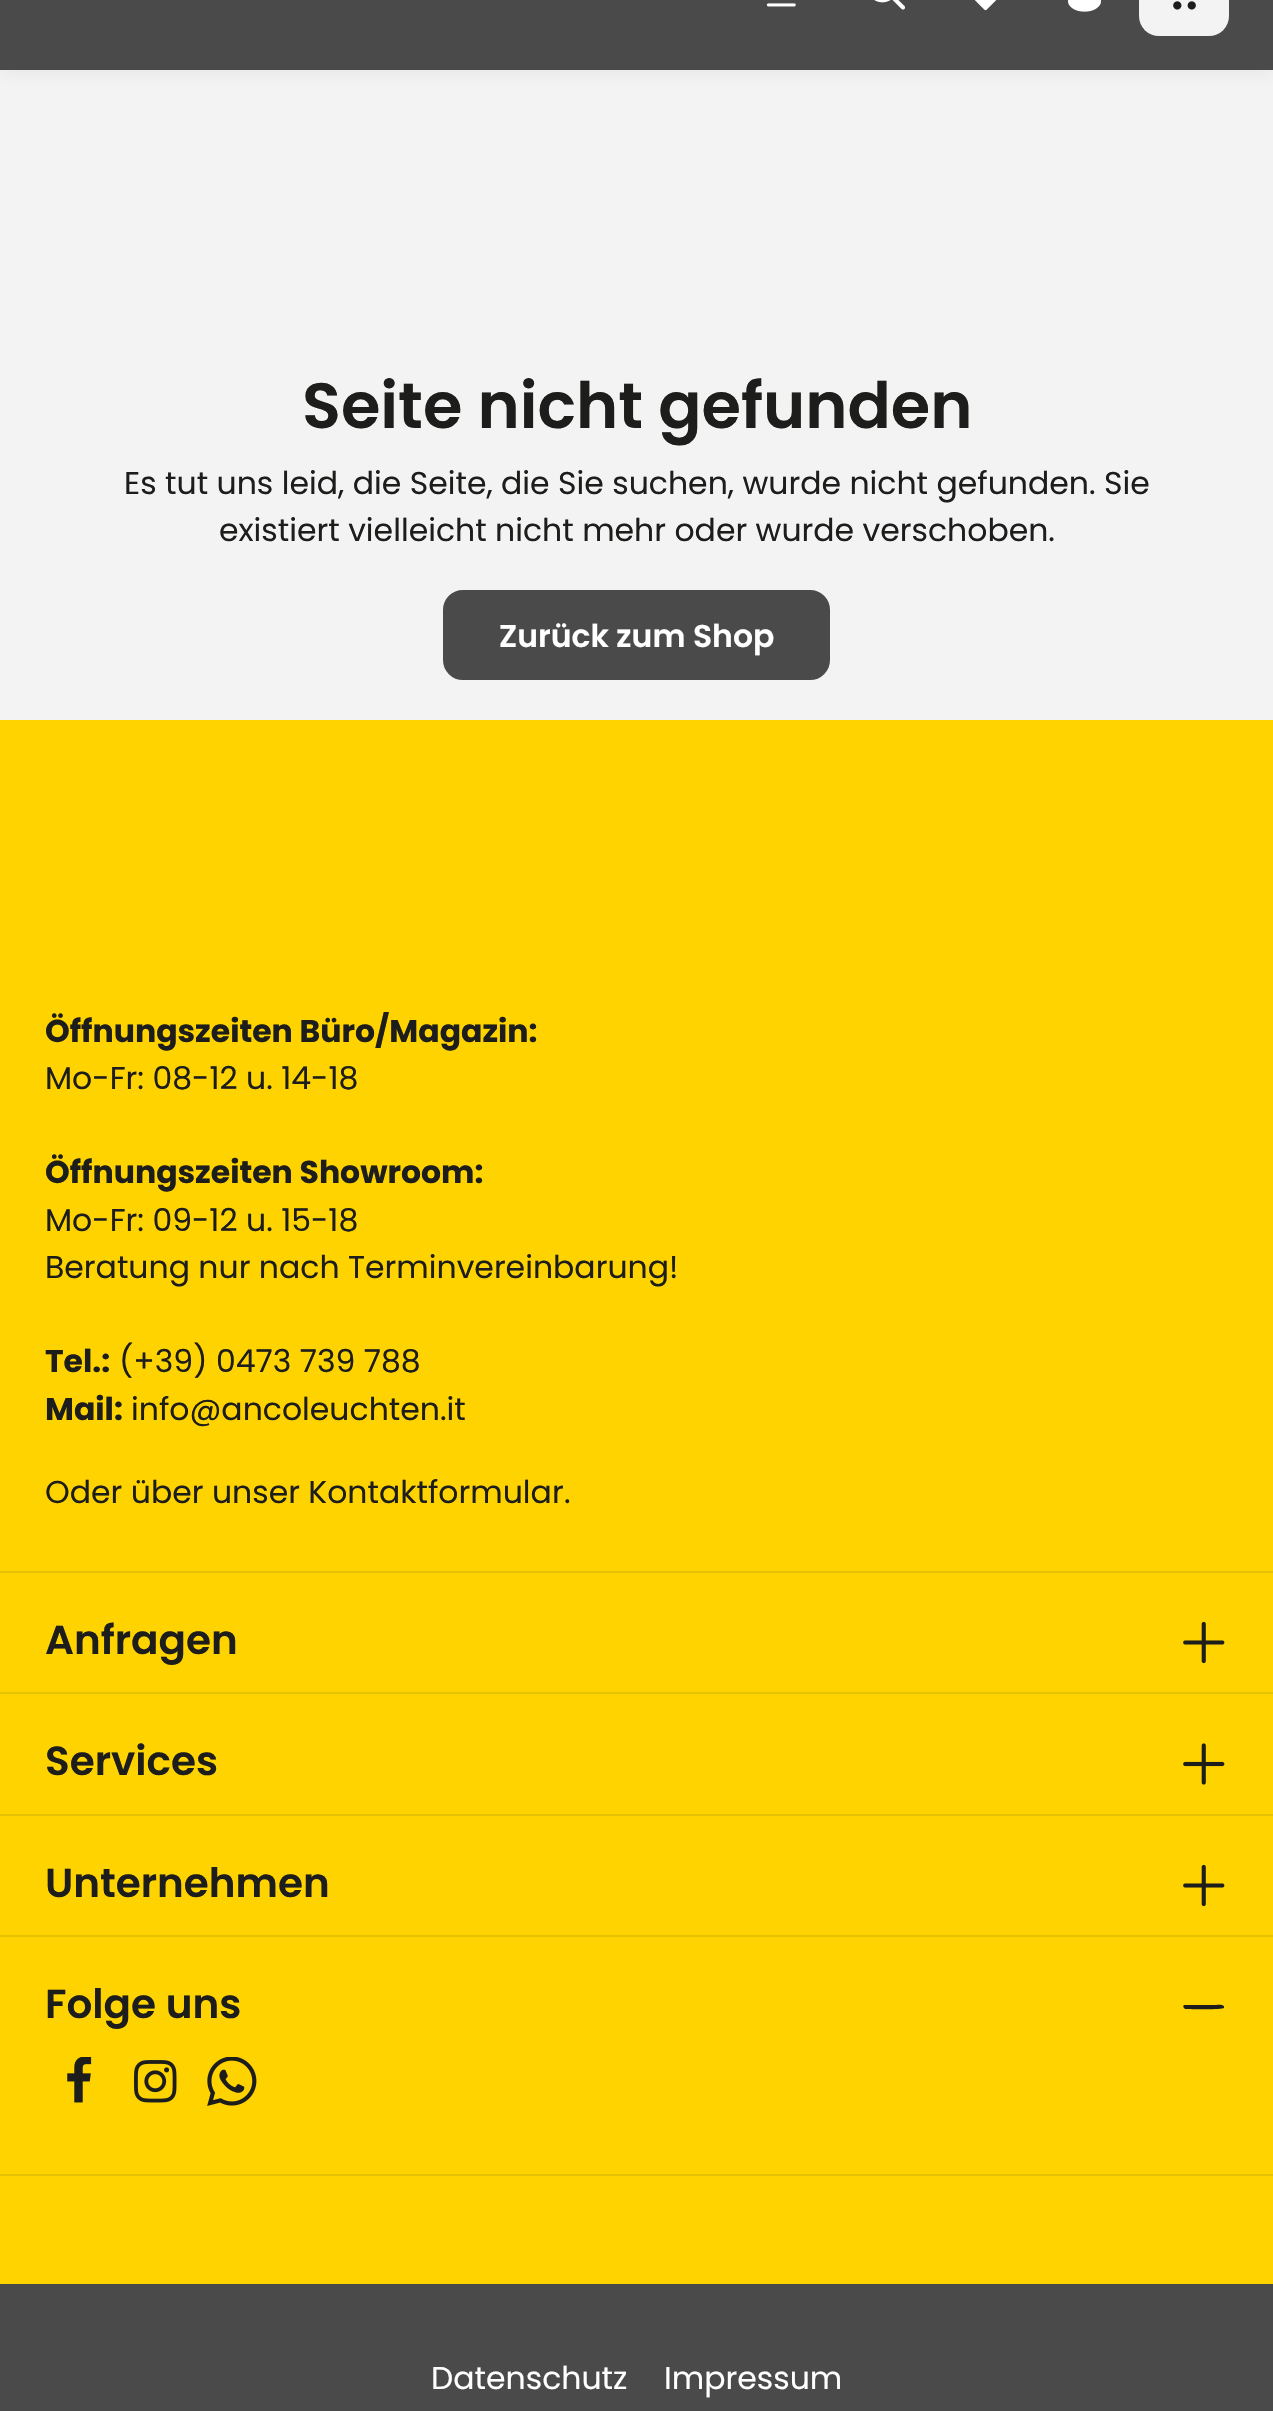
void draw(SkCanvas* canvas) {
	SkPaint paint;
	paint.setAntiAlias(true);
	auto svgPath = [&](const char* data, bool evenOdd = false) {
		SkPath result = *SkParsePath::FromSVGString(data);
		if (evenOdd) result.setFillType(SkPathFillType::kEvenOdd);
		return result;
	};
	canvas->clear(0xfff3f3f3);
	paint.setColor(0x1216181d);
	paint.setMaskFilter(SkMaskFilter::MakeBlur(kNormal_SkBlurStyle, 11));
	canvas->drawRect(SkRect::MakeXYWH(0, -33, 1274, 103), paint);
	paint.setMaskFilter(nullptr);
	paint.setColor(0xff4a4a4a);
	canvas->drawRect(SkRect::MakeXYWH(0, 0, 1273, 70), paint);
	canvas->drawImageRect(SkImages::DeferredFromEncodedData(SkData::MakeFromFileName("img1.png")), SkRect::MakeXYWH(766, 3, 30, 4), SkSamplingOptions());
	canvas->drawImageRect(SkImages::DeferredFromEncodedData(SkData::MakeFromFileName("img2.png")), SkRect::MakeXYWH(874, 0, 31, 10), SkSamplingOptions());
	canvas->drawImageRect(SkImages::DeferredFromEncodedData(SkData::MakeFromFileName("img3.png")), SkRect::MakeXYWH(974, 0, 23, 11), SkSamplingOptions());
	canvas->drawImageRect(SkImages::DeferredFromEncodedData(SkData::MakeFromFileName("img4.png")), SkRect::MakeXYWH(1068, 0, 33, 12), SkSamplingOptions());
	paint.setColor(0xfff3f3f3);
	canvas->drawRoundRect(SkRect::MakeXYWH(1139, -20, 90, 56), 20, 20, paint);
	canvas->drawImageRect(SkImages::DeferredFromEncodedData(SkData::MakeFromFileName("img5.png")), SkRect::MakeXYWH(1173, 1, 23, 9), SkSamplingOptions());
	SkFont f1(fontMgr->matchFamilyStyle("Poppins", SkFontStyle(600, SkFontStyle::kNormal_Width, SkFontStyle::kUpright_Slant)), 63.9);
	f1.setSubpixel(true);
	paint.setColor(0xff1d1d1c);
	canvas->drawString("Seite nicht gefunden", 302, 428, f1, paint);
	SkFont f2(fontMgr->matchFamilyStyle("Poppins", SkFontStyle::Normal()), 31.5);
	f2.setSubpixel(true);
	canvas->drawString("Es tut uns leid, die Seite, die Sie suchen, wurde nicht gefunden. Sie", 124, 494, f2, paint);
	canvas->drawString("existiert vielleicht nicht mehr oder wurde verschoben.", 219, 541, f2, paint);
	paint.setColor(0xff4a4a4a);
	canvas->drawRoundRect(SkRect::MakeXYWH(444, 591, 385, 88), 19, 19, paint);
	paint.setStroke(true);
	paint.setStrokeWidth(2);
	canvas->drawRoundRect(SkRect::MakeXYWH(444, 591, 385, 88), 19, 19, paint);
	SkFont f3(fontMgr->matchFamilyStyle("Poppins", SkFontStyle(600, SkFontStyle::kNormal_Width, SkFontStyle::kUpright_Slant)), 31.5);
	f3.setSubpixel(true);
	paint.setStroke(false);
	paint.setColor(0xffffffff);
	canvas->drawString("Zurück zum Shop", 499, 647, f3, paint);
	paint.setColor(0xfffed300);
	canvas->drawRect(SkRect::MakeXYWH(0, 720, 1273, 1564), paint);
	paint.setColor(0xffe7c103);
	canvas->drawRect(SkRect::MakeXYWH(0, 1571, 1273, 2), paint);
	SkFont f4(fontMgr->matchFamilyStyle("Poppins", SkFontStyle::Bold()), 31.5);
	f4.setSubpixel(true);
	paint.setColor(0xff1d1d1c);
	canvas->drawString("Öffnungszeiten Büro/Magazin:", 45, 1042, f4, paint);
	canvas->drawString("Mo-Fr: 08-12 u. 14-18", 45, 1089, f2, paint);
	canvas->drawString("Öffnungszeiten Showroom:", 45, 1183, f4, paint);
	canvas->drawString("Mo-Fr: 09-12 u. 15-18", 45, 1231, f2, paint);
	canvas->drawString("Beratung nur nach Terminvereinbarung!", 45, 1278, f2, paint);
	canvas->drawString("Tel.:", 45, 1372, f4, paint);
	canvas->drawString("(+39) 0473 739 788", 119, 1372, f2, paint);
	canvas->drawString("Mail:", 45, 1420, f4, paint);
	canvas->drawString("info@ancoleuchten.it", 131, 1420, f2, paint);
	canvas->drawString("Oder über unser Kontaktformular", 45, 1503, f2, paint);
	canvas->drawString(".", 564, 1503, f2, paint);
	paint.setColor(0xffe7c103);
	canvas->drawRect(SkRect::MakeXYWH(0, 1692, 1273, 2), paint);
	SkFont f5(fontMgr->matchFamilyStyle("Poppins", SkFontStyle(600, SkFontStyle::kNormal_Width, SkFontStyle::kUpright_Slant)), 40.5);
	f5.setSubpixel(true);
	paint.setColor(0xff1d1d1c);
	canvas->drawString("Anfragen", 45, 1654, f5, paint);
	canvas->drawImageRect(SkImages::DeferredFromEncodedData(SkData::MakeFromFileName("img6.png")), SkRect::MakeXYWH(1183, 1621, 42, 43), SkSamplingOptions());
	paint.setColor(0xffe7c103);
	canvas->drawRect(SkRect::MakeXYWH(0, 1814, 1273, 2), paint);
	paint.setColor(0xff1d1d1c);
	canvas->drawString("Services", 45, 1775, f5, paint);
	canvas->drawImageRect(SkImages::DeferredFromEncodedData(SkData::MakeFromFileName("img7.png")), SkRect::MakeXYWH(1183, 1743, 42, 42), SkSamplingOptions());
	paint.setColor(0xffe7c103);
	canvas->drawRect(SkRect::MakeXYWH(0, 1935, 1273, 2), paint);
	paint.setColor(0xff1d1d1c);
	canvas->drawString("Unternehmen", 45, 1897, f5, paint);
	canvas->drawImageRect(SkImages::DeferredFromEncodedData(SkData::MakeFromFileName("img6.png")), SkRect::MakeXYWH(1183, 1864, 42, 43), SkSamplingOptions());
	paint.setColor(0xffe7c103);
	canvas->drawRect(SkRect::MakeXYWH(0, 2174, 1273, 2), paint);
	paint.setColor(0xff1d1d1c);
	canvas->drawString("Folge uns", 45, 2018, f5, paint);
	canvas->drawPath(svgPath("M1185 2009C1190 2009 1222 2010 1224 2008V2007C1224 2004 1217 2005 1216 2005H1184C1183 2006 1183 2007 1184 2008Z", true), paint);
	canvas->drawImageRect(SkImages::DeferredFromEncodedData(SkData::MakeFromFileName("img8.png")), SkRect::MakeXYWH(67, 2057, 25, 46), SkSamplingOptions());
	canvas->drawImageRect(SkImages::DeferredFromEncodedData(SkData::MakeFromFileName("img9.png")), SkRect::MakeXYWH(134, 2060, 43, 43), SkSamplingOptions());
	canvas->drawImageRect(SkImages::DeferredFromEncodedData(SkData::MakeFromFileName("img10.png")), SkRect::MakeXYWH(207, 2057, 50, 49), SkSamplingOptions());
	paint.setColor(0xff4a4a4a);
	canvas->drawRect(SkRect::MakeXYWH(0, 2284, 1273, 127), paint);
	paint.setColor(0xffffffff);
	canvas->drawString("Datenschutz", 431, 2389, f2, paint);
	canvas->drawString("Impressum", 664, 2389, f2, paint);
}
